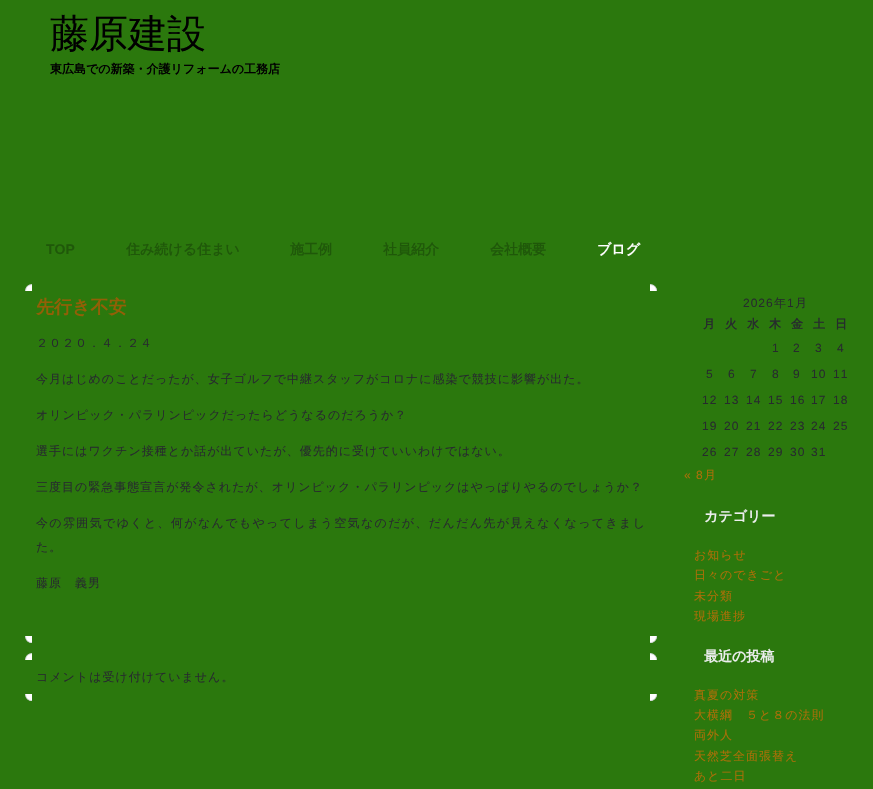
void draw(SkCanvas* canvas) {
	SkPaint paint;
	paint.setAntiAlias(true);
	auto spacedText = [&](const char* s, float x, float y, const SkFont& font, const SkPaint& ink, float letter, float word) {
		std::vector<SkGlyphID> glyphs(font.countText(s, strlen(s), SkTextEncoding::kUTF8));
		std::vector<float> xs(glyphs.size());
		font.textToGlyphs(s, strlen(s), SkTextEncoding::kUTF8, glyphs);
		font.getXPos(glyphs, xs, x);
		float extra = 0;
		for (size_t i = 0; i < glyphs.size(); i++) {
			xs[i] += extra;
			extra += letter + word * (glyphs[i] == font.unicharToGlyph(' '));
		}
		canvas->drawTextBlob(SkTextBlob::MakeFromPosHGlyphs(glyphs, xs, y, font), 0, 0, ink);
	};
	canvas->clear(0xff2b780d);
	SkFont f1(fontMgr->matchFamilyStyle("WenQuanYi Zen Hei", SkFontStyle(500, SkFontStyle::kNormal_Width, SkFontStyle::kUpright_Slant)), 39);
	f1.setSubpixel(true);
	paint.setColor(0xff000000);
	canvas->drawString("藤原建設", 50, 47, f1, paint);
	SkFont f2(fontMgr->matchFamilyStyle("WenQuanYi Zen Hei", SkFontStyle::Bold()), 12);
	f2.setSubpixel(true);
	canvas->drawString("東広島での新築・介護リフォームの工務店", 50, 73, f2, paint);
	SkFont f3(fontMgr->matchFamilyStyle("Liberation Sans", SkFontStyle::Bold()), 14);
	f3.setSubpixel(true);
	paint.setColor(0xff1f5809);
	canvas->drawString("TOP", 46, 254, f3, paint);
	SkFont f4(fontMgr->matchFamilyStyle("WenQuanYi Zen Hei", SkFontStyle::Bold()), 14);
	f4.setSubpixel(true);
	canvas->drawString("住み続ける住まい", 126, 254, f4, paint);
	canvas->drawString("施工例", 290, 254, f4, paint);
	canvas->drawString("社員紹介", 383, 254, f4, paint);
	canvas->drawString("会社概要", 490, 254, f4, paint);
	paint.setColor(0xffffffff);
	canvas->drawString("ブログ", 597, 254, f4, paint);
	canvas->drawImageRect(SkImages::DeferredFromEncodedData(SkData::MakeFromFileName("img1.png")), SkRect::MakeXYWH(25, 284, 7, 7), SkSamplingOptions());
	canvas->drawImageRect(SkImages::DeferredFromEncodedData(SkData::MakeFromFileName("img2.png")), SkRect::MakeXYWH(650, 284, 7, 7), SkSamplingOptions());
	SkFont f5(fontMgr->matchFamilyStyle("WenQuanYi Zen Hei", SkFontStyle::Bold()), 18);
	f5.setSubpixel(true);
	paint.setColor(0xff935f06);
	canvas->drawString("先行き不安", 36, 313, f5, paint);
	SkFont f6(fontMgr->matchFamilyStyle("WenQuanYi Zen Hei", SkFontStyle(500, SkFontStyle::kNormal_Width, SkFontStyle::kUpright_Slant)), 12);
	f6.setSubpixel(true);
	paint.setColor(0xff262c2c);
	spacedText("２０２０．４．２４", 36, 347, f6, paint, 1, 0);
	spacedText("今月はじめのことだったが、女子ゴルフで中継スタッフがコロナに感染で競技に影響が出た。", 36, 383, f6, paint, 1, 0);
	spacedText("オリンピック・パラリンピックだったらどうなるのだろうか？", 36, 419, f6, paint, 1, 0);
	spacedText("選手にはワクチン接種とか話が出ていたが、優先的に受けていいわけではない。", 36, 455, f6, paint, 1, 0);
	spacedText("三度目の緊急事態宣言が発令されたが、オリンピック・パラリンピックはやっぱりやるのでしょうか？", 36, 491, f6, paint, 1, 0);
	spacedText("今の雰囲気でゆくと、何がなんでもやってしまう空気なのだが、だんだん先が見えなくなってきまし", 36, 527, f6, paint, 1.35, 0);
	spacedText("た。", 36, 551, f6, paint, 1, 0);
	spacedText("藤原　義男", 36, 587, f6, paint, 1, 0);
	canvas->drawImageRect(SkImages::DeferredFromEncodedData(SkData::MakeFromFileName("img3.png")), SkRect::MakeXYWH(25, 636, 7, 7), SkSamplingOptions());
	canvas->drawImageRect(SkImages::DeferredFromEncodedData(SkData::MakeFromFileName("img4.png")), SkRect::MakeXYWH(650, 636, 7, 7), SkSamplingOptions());
	canvas->drawImageRect(SkImages::DeferredFromEncodedData(SkData::MakeFromFileName("img1.png")), SkRect::MakeXYWH(25, 653, 7, 7), SkSamplingOptions());
	canvas->drawImageRect(SkImages::DeferredFromEncodedData(SkData::MakeFromFileName("img2.png")), SkRect::MakeXYWH(650, 653, 7, 7), SkSamplingOptions());
	spacedText("コメントは受け付けていません。", 36, 681, f6, paint, 1, 0);
	canvas->drawImageRect(SkImages::DeferredFromEncodedData(SkData::MakeFromFileName("img3.png")), SkRect::MakeXYWH(25, 694, 7, 7), SkSamplingOptions());
	canvas->drawImageRect(SkImages::DeferredFromEncodedData(SkData::MakeFromFileName("img4.png")), SkRect::MakeXYWH(650, 694, 7, 7), SkSamplingOptions());
	SkFont f7(fontMgr->matchFamilyStyle("Liberation Sans", SkFontStyle::Normal()), 12);
	f7.setSubpixel(true);
	spacedText("2026", 743, 307, f7, paint, 1, 0);
	spacedText("年", 774, 307, f6, paint, 1, 0);
	spacedText("1", 787, 307, f7, paint, 1, 0);
	spacedText("月", 795, 307, f6, paint, 1, 0);
	spacedText("月", 703, 328, f2, paint, 1, 0);
	spacedText("火", 725, 328, f2, paint, 1, 0);
	spacedText("水", 747, 328, f2, paint, 1, 0);
	spacedText("木", 769, 328, f2, paint, 1, 0);
	spacedText("金", 791, 328, f2, paint, 1, 0);
	spacedText("土", 813, 328, f2, paint, 1, 0);
	spacedText("日", 835, 328, f2, paint, 1, 0);
	spacedText("1", 772, 352, f7, paint, 1, 0);
	spacedText("2", 793, 352, f7, paint, 1, 0);
	spacedText("3", 815, 352, f7, paint, 1, 0);
	spacedText("4", 837, 352, f7, paint, 1, 0);
	spacedText("5", 706, 378, f7, paint, 1, 0);
	spacedText("6", 728, 378, f7, paint, 1, 0);
	spacedText("7", 750, 378, f7, paint, 1, 0);
	spacedText("8", 772, 378, f7, paint, 1, 0);
	spacedText("9", 793, 378, f7, paint, 1, 0);
	spacedText("10", 811, 378, f7, paint, 1, 0);
	spacedText("11", 833, 378, f7, paint, 1, 0);
	spacedText("12", 702, 404, f7, paint, 1, 0);
	spacedText("13", 724, 404, f7, paint, 1, 0);
	spacedText("14", 746, 404, f7, paint, 1, 0);
	spacedText("15", 768, 404, f7, paint, 1, 0);
	spacedText("16", 790, 404, f7, paint, 1, 0);
	spacedText("17", 811, 404, f7, paint, 1, 0);
	spacedText("18", 833, 404, f7, paint, 1, 0);
	spacedText("19", 702, 430, f7, paint, 1, 0);
	spacedText("20", 724, 430, f7, paint, 1, 0);
	spacedText("21", 746, 430, f7, paint, 1, 0);
	spacedText("22", 768, 430, f7, paint, 1, 0);
	spacedText("23", 790, 430, f7, paint, 1, 0);
	spacedText("24", 811, 430, f7, paint, 1, 0);
	spacedText("25", 833, 430, f7, paint, 1, 0);
	spacedText("26", 702, 456, f7, paint, 1, 0);
	spacedText("27", 724, 456, f7, paint, 1, 0);
	spacedText("28", 746, 456, f7, paint, 1, 0);
	spacedText("29", 768, 456, f7, paint, 1, 0);
	spacedText("30", 790, 456, f7, paint, 1, 0);
	spacedText("31", 811, 456, f7, paint, 1, 0);
	paint.setColor(0xffab6f07);
	spacedText("« 8", 684, 479, f7, paint, 1, 0);
	spacedText("月", 704, 479, f6, paint, 1, 0);
	paint.setColor(0xffeceeee);
	canvas->drawString("カテゴリー", 704, 521, f4, paint);
	paint.setColor(0xffab6f07);
	spacedText("お知らせ", 694, 559, f6, paint, 1, 0);
	spacedText("日々のできごと", 694, 579, f6, paint, 1, 0);
	spacedText("未分類", 694, 600, f6, paint, 1, 0);
	spacedText("現場進捗", 694, 620, f6, paint, 1, 0);
	paint.setColor(0xffeceeee);
	canvas->drawString("最近の投稿", 704, 661, f4, paint);
	paint.setColor(0xffab6f07);
	spacedText("真夏の対策", 694, 699, f6, paint, 1, 0);
	spacedText("大横綱　５と８の法則", 694, 719, f6, paint, 1, 0);
	spacedText("両外人", 694, 739, f6, paint, 1, 0);
	spacedText("天然芝全面張替え", 694, 760, f6, paint, 1, 0);
	spacedText("あと二日", 694, 780, f6, paint, 1, 0);
}
